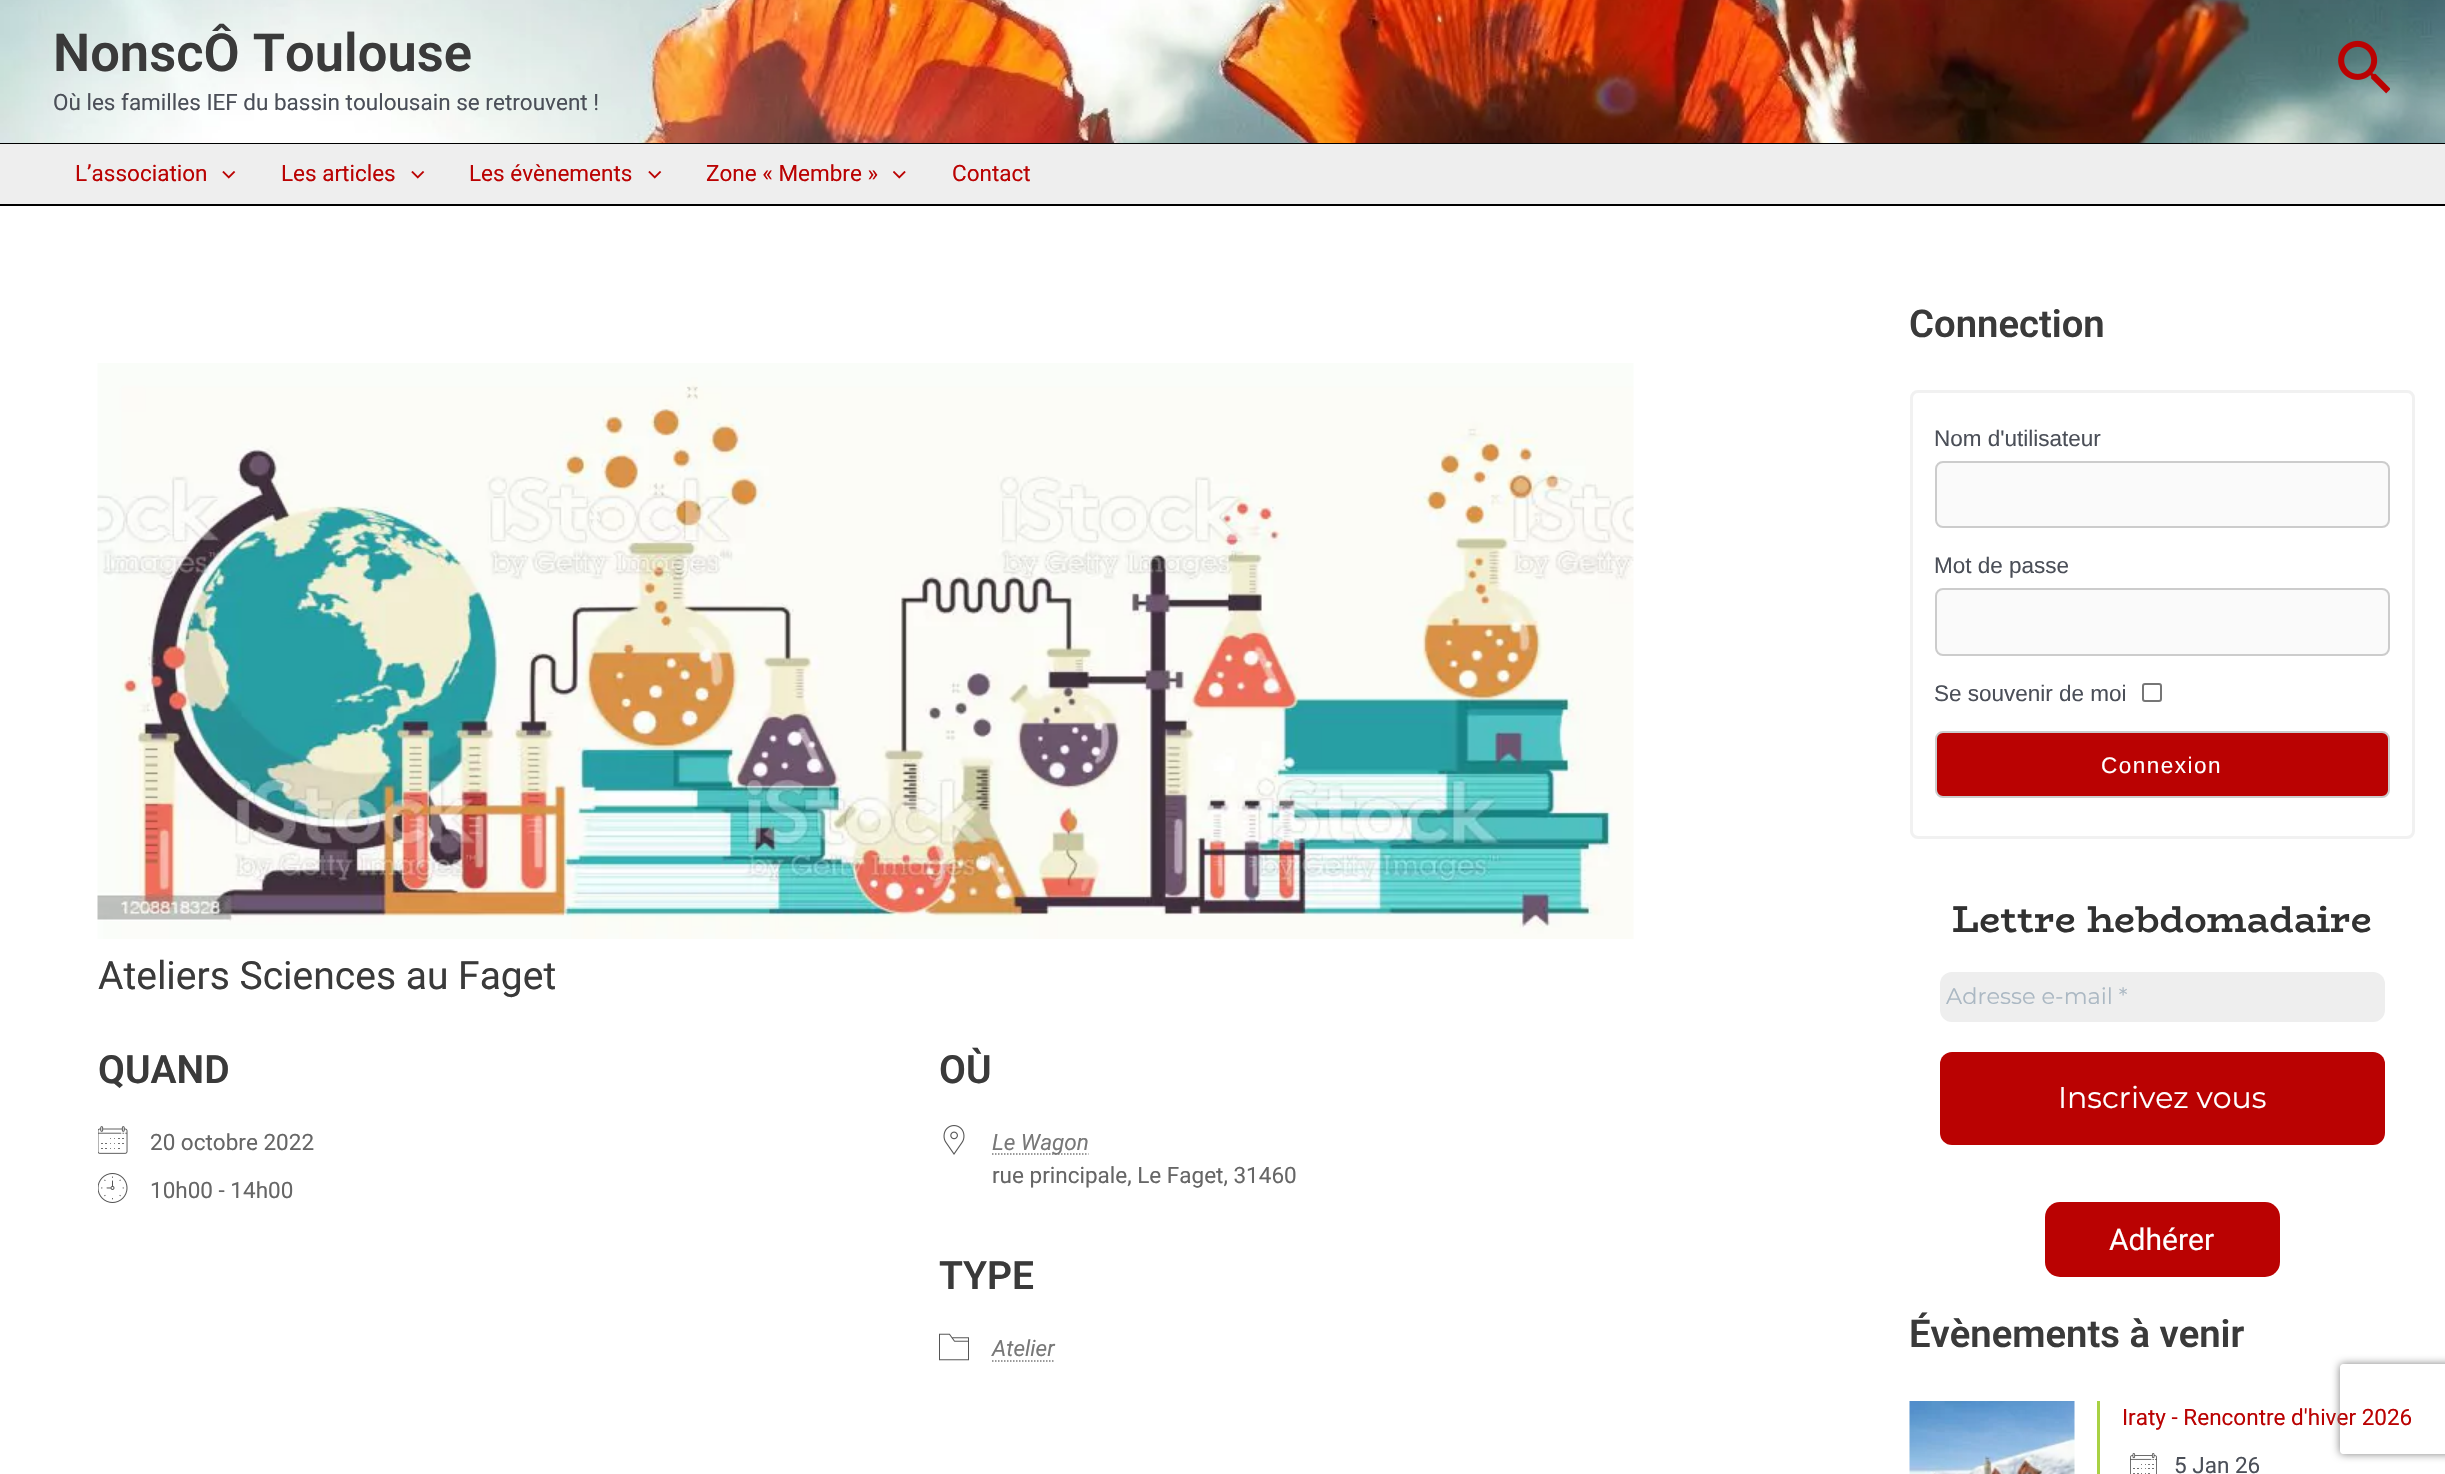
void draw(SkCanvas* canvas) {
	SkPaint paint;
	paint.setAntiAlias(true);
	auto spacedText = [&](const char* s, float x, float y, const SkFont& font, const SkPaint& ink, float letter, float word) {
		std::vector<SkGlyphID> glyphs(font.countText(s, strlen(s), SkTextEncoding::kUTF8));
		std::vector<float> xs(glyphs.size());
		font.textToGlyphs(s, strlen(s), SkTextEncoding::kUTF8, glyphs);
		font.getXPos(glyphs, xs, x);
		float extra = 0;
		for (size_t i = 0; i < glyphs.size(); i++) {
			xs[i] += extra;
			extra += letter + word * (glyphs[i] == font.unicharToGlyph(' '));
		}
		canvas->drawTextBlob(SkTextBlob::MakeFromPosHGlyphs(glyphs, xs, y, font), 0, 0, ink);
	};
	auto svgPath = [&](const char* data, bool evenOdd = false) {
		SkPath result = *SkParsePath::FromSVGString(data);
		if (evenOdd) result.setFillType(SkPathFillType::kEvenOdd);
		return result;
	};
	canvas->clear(0xffffffff);
	canvas->drawImageRect(SkImages::DeferredFromEncodedData(SkData::MakeFromFileName("img1.png")), SkRect::MakeXYWH(0, 0, 2445, 143), SkSamplingOptions());
	paint.setColor(0xff000000);
	canvas->drawRect(SkRect::MakeXYWH(0, 143, 2445, 1), paint);
	SkFont f1(fontMgr->matchFamilyStyle("Roboto", SkFontStyle(600, SkFontStyle::kNormal_Width, SkFontStyle::kUpright_Slant)), 52.5);
	f1.setSubpixel(true);
	paint.setColor(0xff3a3a3a);
	canvas->drawString("NonscÔ Toulouse", 53, 71, f1, paint);
	SkFont f2(fontMgr->matchFamilyStyle("Roboto", SkFontStyle::Normal()), 22.5);
	f2.setSubpixel(true);
	paint.setColor(0xff4b4f58);
	canvas->drawString("Où les familles IEF du bassin toulousain se retrouvent !", 53, 110, f2, paint);
	canvas->drawImageRect(SkImages::DeferredFromEncodedData(SkData::MakeFromFileName("img2.png")), SkRect::MakeXYWH(2338, 40, 52, 54), SkSamplingOptions());
	paint.setColor(0xffeeeeee);
	canvas->drawRect(SkRect::MakeXYWH(0, 144, 2445, 60), paint);
	paint.setColor(0xff000000);
	canvas->drawRect(SkRect::MakeXYWH(0, 204, 2445, 2), paint);
	paint.setColor(0xffba0202);
	canvas->drawString("L’association", 75, 181, f2, paint);
	canvas->drawImageRect(SkImages::DeferredFromEncodedData(SkData::MakeFromFileName("img3.png")), SkRect::MakeXYWH(222, 171, 14, 8), SkSamplingOptions());
	canvas->drawString("Les articles", 281, 181, f2, paint);
	canvas->drawImageRect(SkImages::DeferredFromEncodedData(SkData::MakeFromFileName("img3.png")), SkRect::MakeXYWH(411, 171, 14, 8), SkSamplingOptions());
	canvas->drawString("Les évènements", 469, 181, f2, paint);
	canvas->drawImageRect(SkImages::DeferredFromEncodedData(SkData::MakeFromFileName("img3.png")), SkRect::MakeXYWH(648, 171, 14, 8), SkSamplingOptions());
	canvas->drawString("Zone « Membre »", 706, 181, f2, paint);
	canvas->drawImageRect(SkImages::DeferredFromEncodedData(SkData::MakeFromFileName("img4.png")), SkRect::MakeXYWH(893, 171, 13, 8), SkSamplingOptions());
	canvas->drawString("Contact", 952, 181, f2, paint);
	canvas->drawImageRect(SkImages::DeferredFromEncodedData(SkData::MakeFromFileName("img5.png")), SkRect::MakeXYWH(97, 363, 1537, 576), SkSamplingOptions());
	SkFont f3(fontMgr->matchFamilyStyle("Roboto", SkFontStyle::Normal()), 39);
	f3.setSubpixel(true);
	paint.setColor(0xff3a3a3a);
	canvas->drawString("Ateliers Sciences au Faget", 98, 989, f3, paint);
	SkFont f4(fontMgr->matchFamilyStyle("Roboto", SkFontStyle(600, SkFontStyle::kNormal_Width, SkFontStyle::kUpright_Slant)), 39);
	f4.setSubpixel(true);
	canvas->drawString("QUAND", 98, 1083, f4, paint);
	canvas->drawImageRect(SkImages::DeferredFromEncodedData(SkData::MakeFromFileName("img6.png")), SkRect::MakeXYWH(98, 1126, 30, 28), SkSamplingOptions());
	paint.setColor(0xff666666);
	canvas->drawString("20 octobre 2022", 150, 1150, f2, paint);
	canvas->drawImageRect(SkImages::DeferredFromEncodedData(SkData::MakeFromFileName("img7.png")), SkRect::MakeXYWH(98, 1173, 30, 30), SkSamplingOptions());
	canvas->drawString("10h00 - 14h00", 150, 1198, f2, paint);
	paint.setColor(0xff3a3a3a);
	canvas->drawString("OÙ", 939, 1083, f4, paint);
	canvas->drawImageRect(SkImages::DeferredFromEncodedData(SkData::MakeFromFileName("img8.png")), SkRect::MakeXYWH(943, 1125, 22, 30), SkSamplingOptions());
	paint.setStroke(true);
	paint.setStrokeWidth(1.5);
	paint.setColor(0xff787878);
	paint.setPathEffect(SkDashPathEffect::Make({{1.5f, 1.5f}}, 0));
	canvas->drawPath(svgPath("M992 1154H1088.5"), paint);
	paint.setPathEffect(nullptr);
	SkFont f5(fontMgr->matchFamilyStyle("Roboto", SkFontStyle::Italic()), 22.5);
	f5.setSubpixel(true);
	paint.setStroke(false);
	canvas->drawString("Le Wagon", 992, 1150, f5, paint);
	paint.setColor(0xff666666);
	canvas->drawString("rue principale, Le Faget, 31460", 992, 1183, f2, paint);
	paint.setColor(0xff3a3a3a);
	canvas->drawString("TYPE", 939, 1289, f4, paint);
	canvas->drawImageRect(SkImages::DeferredFromEncodedData(SkData::MakeFromFileName("img9.png")), SkRect::MakeXYWH(939, 1333, 30, 28), SkSamplingOptions());
	paint.setColor(0xff787878);
	canvas->drawString("Atelier", 992, 1356, f5, paint);
	paint.setStroke(true);
	paint.setPathEffect(SkDashPathEffect::Make({{1.5f, 1.5f}}, 0));
	canvas->drawPath(svgPath("M992 1361H1054.5"), paint);
	paint.setPathEffect(nullptr);
	SkFont f6(fontMgr->matchFamilyStyle("Roboto", SkFontStyle(600, SkFontStyle::kNormal_Width, SkFontStyle::kUpright_Slant)), 38.25);
	f6.setSubpixel(true);
	paint.setStroke(false);
	paint.setColor(0xff3a3a3a);
	canvas->drawString("Connection", 1909, 337, f6, paint);
	paint.setStroke(true);
	paint.setStrokeWidth(3);
	paint.setColor(0xfff1f1f1);
	canvas->drawRoundRect(SkRect::MakeXYWH(1911.5, 391.5, 502, 446), 6.5, 6.5, paint);
	SkFont f7(fontMgr->matchFamilyStyle("Liberation Sans", SkFontStyle::Normal()), 22.5);
	f7.setSubpixel(true);
	paint.setStroke(false);
	paint.setColor(0xff4b4f58);
	canvas->drawString("Nom d'utilisateur", 1934, 446, f7, paint);
	paint.setColor(0xfffafafa);
	canvas->drawRoundRect(SkRect::MakeXYWH(1936, 462, 453, 65), 7, 7, paint);
	paint.setStroke(true);
	paint.setStrokeWidth(2);
	paint.setColor(0xffcccccc);
	canvas->drawRoundRect(SkRect::MakeXYWH(1936, 462, 453, 65), 7, 7, paint);
	paint.setStroke(false);
	paint.setColor(0xff4b4f58);
	canvas->drawString("Mot de passe", 1934, 573, f7, paint);
	paint.setColor(0xfffafafa);
	canvas->drawRoundRect(SkRect::MakeXYWH(1936, 589, 453, 66), 7, 7, paint);
	paint.setStroke(true);
	paint.setColor(0xffcccccc);
	canvas->drawRoundRect(SkRect::MakeXYWH(1936, 589, 453, 66), 7, 7, paint);
	paint.setStroke(false);
	paint.setColor(0xff4b4f58);
	canvas->drawString("Se souvenir de moi", 1934, 701, f7, paint);
	paint.setStroke(true);
	paint.setColor(0xff767676);
	canvas->drawRoundRect(SkRect::MakeXYWH(2143, 684, 18, 17), 2, 2, paint);
	paint.setStroke(false);
	paint.setColor(0xffba0202);
	canvas->drawRoundRect(SkRect::MakeXYWH(1936, 732, 453, 65), 7, 7, paint);
	paint.setStroke(true);
	paint.setColor(0xffcccccc);
	canvas->drawRoundRect(SkRect::MakeXYWH(1936, 732, 453, 65), 7, 7, paint);
	paint.setStroke(false);
	paint.setColor(0xffffffff);
	spacedText("Connexion", 2101, 773, f7, paint, 1.5, 0);
	SkFont f8(fontMgr->matchFamilyStyle("BioRhyme", SkFontStyle(600, SkFontStyle::kNormal_Width, SkFontStyle::kUpright_Slant)), 37.5);
	f8.setSubpixel(true);
	paint.setColor(0xff313131);
	canvas->drawString("Lettre hebdomadaire", 1952, 932, f8, paint);
	paint.setColor(0xffeeeeee);
	canvas->drawRoundRect(SkRect::MakeXYWH(1940, 972, 445, 50), 12, 12, paint);
	SkFont f9(fontMgr->matchFamilyStyle("Montserrat", SkFontStyle::Normal()), 22.5);
	f9.setSubpixel(true);
	paint.setColor(0xffabb8c3);
	canvas->drawString("Adresse e-mail *", 1946, 1004, f9, paint);
	paint.setColor(0xffba0202);
	canvas->drawRoundRect(SkRect::MakeXYWH(1940, 1052, 445, 93), 12, 12, paint);
	SkFont f10(fontMgr->matchFamilyStyle("Montserrat", SkFontStyle::Normal()), 30);
	f10.setSubpixel(true);
	paint.setColor(0xffffffff);
	canvas->drawString("Inscrivez vous", 2058, 1108, f10, paint);
	paint.setColor(0xffba0202);
	canvas->drawRoundRect(SkRect::MakeXYWH(2045, 1202, 235, 75), 15, 15, paint);
	SkFont f11(fontMgr->matchFamilyStyle("Roboto", SkFontStyle::Normal()), 30);
	f11.setSubpixel(true);
	paint.setColor(0xffffffff);
	canvas->drawString("Adhérer", 2109, 1250, f11, paint);
	paint.setColor(0xff3a3a3a);
	canvas->drawString("Évènements à venir", 1909, 1347, f6, paint);
	canvas->drawImageRect(SkImages::DeferredFromEncodedData(SkData::MakeFromFileName("img10.png")), SkRect::MakeXYWH(1909, 1401, 166, 73), SkSamplingOptions());
	paint.setColor(0xffa8d144);
	canvas->drawRect(SkRect::MakeXYWH(2097, 1401, 3, 73), paint);
	paint.setColor(0xffba0202);
	canvas->drawString("Iraty - Rencontre d'hiver 2026", 2122, 1425, f2, paint);
	canvas->drawImageRect(SkImages::DeferredFromEncodedData(SkData::MakeFromFileName("img11.png")), SkRect::MakeXYWH(2130, 1453, 27, 21), SkSamplingOptions());
	paint.setColor(0xff4b4f58);
	canvas->drawString("5 Jan 26", 2174, 1473, f2, paint);
	canvas->save();
	canvas->clipPath(svgPath("M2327 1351H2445V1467H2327ZM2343 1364H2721C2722.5 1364 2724 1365.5 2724 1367V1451C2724 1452.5 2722.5 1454 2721 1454H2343C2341.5 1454 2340 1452.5 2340 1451V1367C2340 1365.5 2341.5 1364 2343 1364Z", true), true);
	paint.setColor(0xff808080);
	paint.setMaskFilter(SkMaskFilter::MakeBlur(kNormal_SkBlurStyle, 4));
	canvas->drawRoundRect(SkRect::MakeXYWH(2340, 1364, 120, 90), 3, 3, paint);
	paint.setMaskFilter(nullptr);
	canvas->restore();
}
